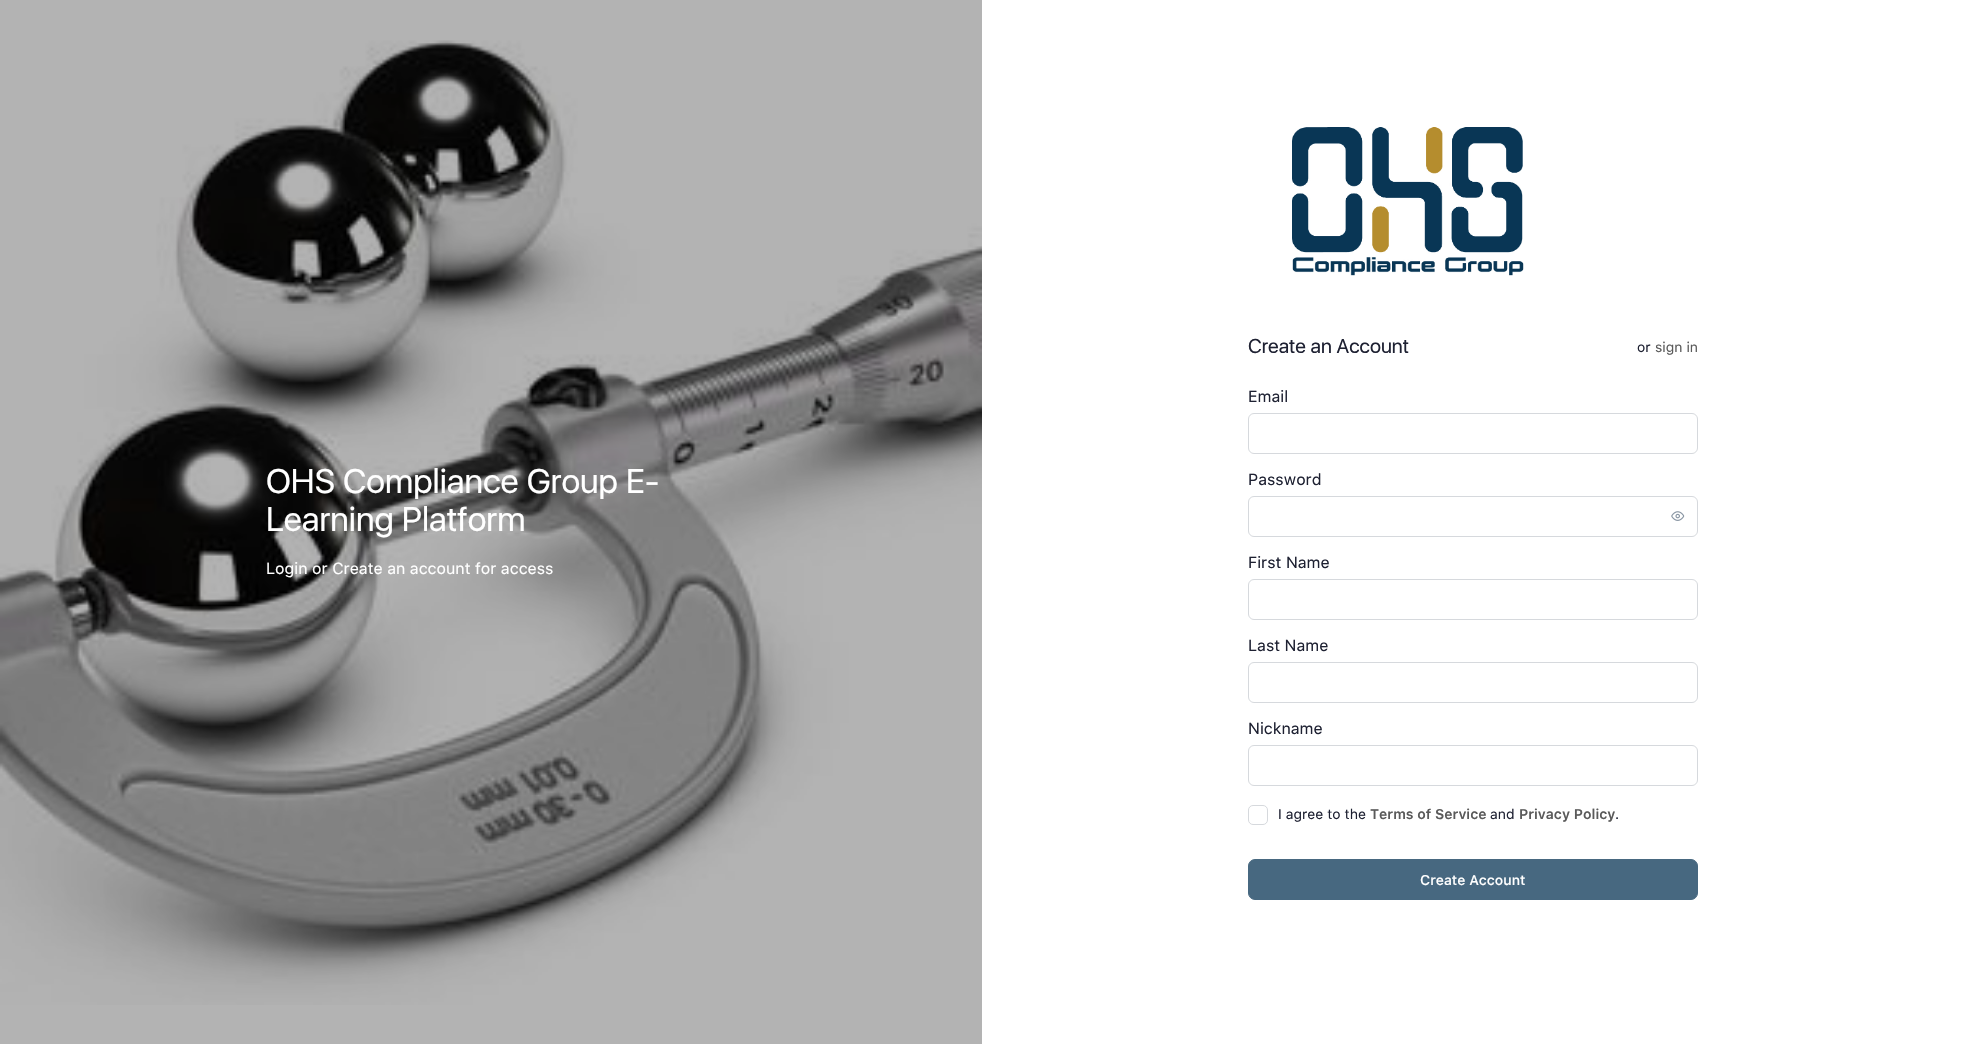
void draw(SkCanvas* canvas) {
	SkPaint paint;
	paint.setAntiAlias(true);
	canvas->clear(0xffffffff);
	paint.setColor(0xffb3b3b3);
	canvas->drawRect(SkRect::MakeXYWH(0, 0, 982, 1044), paint);
	canvas->drawImageRect(SkImages::DeferredFromEncodedData(SkData::MakeFromFileName("img1.png")), SkRect::MakeXYWH(0, 40, 982, 965), SkSamplingOptions());
	SkFont f1(fontMgr->matchFamilyStyle("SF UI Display", SkFontStyle::Normal()), 34);
	f1.setSubpixel(true);
	paint.setColor(0xffffffff);
	canvas->drawString("OHS Compliance Group E-", 266, 493, f1, paint);
	canvas->drawString("Learning Platform", 266, 531, f1, paint);
	SkFont f2(fontMgr->matchFamilyStyle("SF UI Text", SkFontStyle::Normal()), 16);
	f2.setSubpixel(true);
	canvas->drawString("Login or Create an account for access", 266, 574, f2, paint);
	canvas->drawImageRect(SkImages::DeferredFromEncodedData(SkData::MakeFromFileName("img2.png")), SkRect::MakeXYWH(1292, 127, 232, 149), SkSamplingOptions());
	SkFont f3(fontMgr->matchFamilyStyle("SF UI Display", SkFontStyle::Normal()), 20);
	f3.setSubpixel(true);
	paint.setColor(0xff1e2132);
	canvas->drawString("Create an Account", 1248, 353, f3, paint);
	SkFont f4(fontMgr->matchFamilyStyle("SF UI Text", SkFontStyle::Normal()), 14);
	f4.setSubpixel(true);
	canvas->drawString("or", 1637, 352, f4, paint);
	paint.setColor(0xff5a5a5a);
	canvas->drawString("sign in", 1655, 352, f4, paint);
	paint.setColor(0xff1e2132);
	canvas->drawString("Email", 1248, 402, f2, paint);
	paint.setStroke(true);
	paint.setStrokeWidth(1);
	paint.setColor(0xffd6d9dd);
	canvas->drawRoundRect(SkRect::MakeXYWH(1248.5, 413.5, 449, 40), 5.5, 5.5, paint);
	paint.setStroke(false);
	paint.setColor(0xff1e2132);
	canvas->drawString("Password", 1248, 485, f2, paint);
	paint.setStroke(true);
	paint.setColor(0xffd6d9dd);
	canvas->drawRoundRect(SkRect::MakeXYWH(1248.5, 496.5, 449, 40), 5.5, 5.5, paint);
	canvas->drawImageRect(SkImages::DeferredFromEncodedData(SkData::MakeFromFileName("img3.png")), SkRect::MakeXYWH(1671, 511, 14, 10), SkSamplingOptions());
	paint.setStroke(false);
	paint.setColor(0xff1e2132);
	canvas->drawString("First Name", 1248, 568, f2, paint);
	paint.setStroke(true);
	paint.setColor(0xffd6d9dd);
	canvas->drawRoundRect(SkRect::MakeXYWH(1248.5, 579.5, 449, 40), 5.5, 5.5, paint);
	paint.setStroke(false);
	paint.setColor(0xff1e2132);
	canvas->drawString("Last Name", 1248, 651, f2, paint);
	paint.setStroke(true);
	paint.setColor(0xffd6d9dd);
	canvas->drawRoundRect(SkRect::MakeXYWH(1248.5, 662.5, 449, 40), 5.5, 5.5, paint);
	paint.setStroke(false);
	paint.setColor(0xff1e2132);
	canvas->drawString("Nickname", 1248, 734, f2, paint);
	paint.setStroke(true);
	paint.setColor(0xffd6d9dd);
	canvas->drawRoundRect(SkRect::MakeXYWH(1248.5, 745.5, 449, 40), 5.5, 5.5, paint);
	canvas->drawRoundRect(SkRect::MakeXYWH(1248.5, 805.5, 19, 19), 4.5, 4.5, paint);
	paint.setStroke(false);
	paint.setColor(0xff1e2132);
	canvas->drawString("I agree to the", 1278, 819, f4, paint);
	SkFont f5(fontMgr->matchFamilyStyle("SF UI Text", SkFontStyle(600, SkFontStyle::kNormal_Width, SkFontStyle::kUpright_Slant)), 14);
	f5.setSubpixel(true);
	paint.setColor(0xff5a5a5a);
	canvas->drawString("Terms of Service", 1370, 819, f5, paint);
	paint.setColor(0xff1e2132);
	canvas->drawString("and", 1490, 819, f4, paint);
	paint.setColor(0xff5a5a5a);
	canvas->drawString("Privacy Policy", 1519, 819, f5, paint);
	paint.setColor(0xff1e2132);
	canvas->drawString(".", 1615, 819, f4, paint);
	paint.setColor(0xff476880);
	canvas->drawRoundRect(SkRect::MakeXYWH(1248.5, 859.5, 449, 40), 6.5, 6.5, paint);
	paint.setStroke(true);
	canvas->drawRoundRect(SkRect::MakeXYWH(1248.5, 859.5, 449, 40), 6.5, 6.5, paint);
	SkFont f6(fontMgr->matchFamilyStyle("SF UI Text", SkFontStyle(500, SkFontStyle::kNormal_Width, SkFontStyle::kUpright_Slant)), 14);
	f6.setSubpixel(true);
	paint.setStroke(false);
	paint.setColor(0xffffffff);
	canvas->drawString("Create Account", 1420, 885, f6, paint);
}
